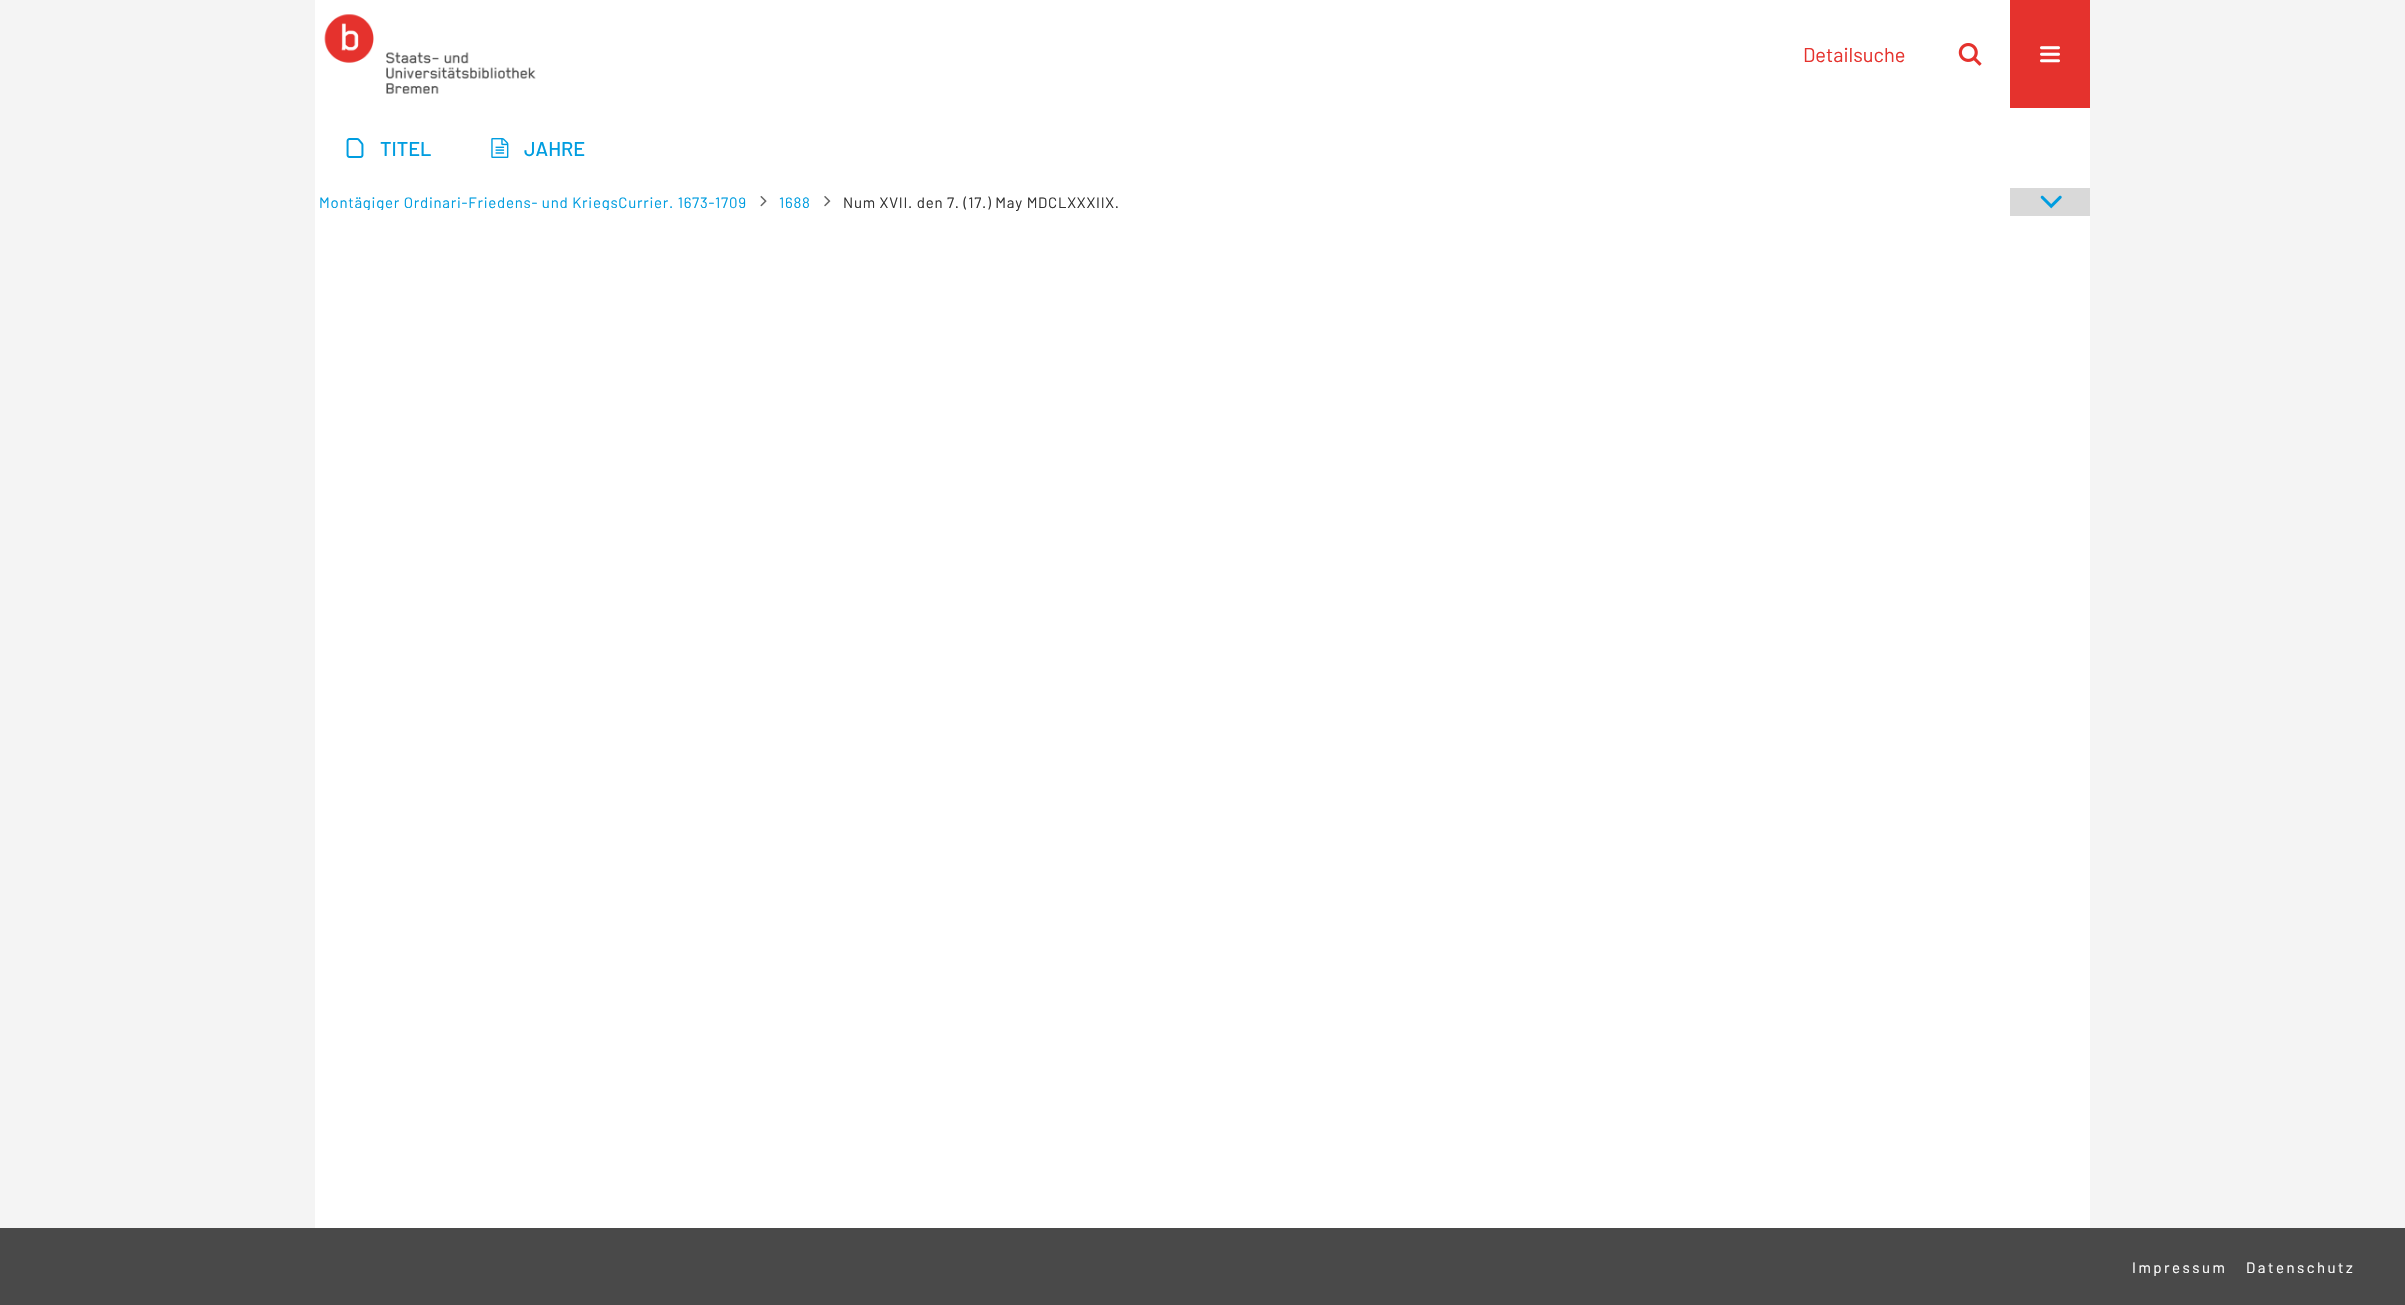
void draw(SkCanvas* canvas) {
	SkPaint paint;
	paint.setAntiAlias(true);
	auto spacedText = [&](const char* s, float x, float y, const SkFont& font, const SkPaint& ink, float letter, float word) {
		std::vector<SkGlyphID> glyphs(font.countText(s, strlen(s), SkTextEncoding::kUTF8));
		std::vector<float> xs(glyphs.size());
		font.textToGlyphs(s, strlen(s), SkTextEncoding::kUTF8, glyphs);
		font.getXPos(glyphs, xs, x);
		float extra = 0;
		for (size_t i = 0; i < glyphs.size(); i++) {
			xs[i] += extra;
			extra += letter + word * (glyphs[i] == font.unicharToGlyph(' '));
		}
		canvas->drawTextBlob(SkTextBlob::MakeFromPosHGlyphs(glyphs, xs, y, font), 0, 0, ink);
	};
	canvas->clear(0xfff4f4f4);
	paint.setColor(0xffffffff);
	canvas->drawRect(SkRect::MakeXYWH(315, 0, 1695, 108), paint);
	canvas->drawImageRect(SkImages::DeferredFromEncodedData(SkData::MakeFromFileName("img1.png")), SkRect::MakeXYWH(324, 14, 212, 80), SkSamplingOptions());
	SkFont f1(fontMgr->matchFamilyStyle("Barlow", SkFontStyle::Normal()), 20);
	f1.setSubpixel(true);
	paint.setColor(0xffe5322d);
	canvas->drawString("Detailsuche", 1803, 62, f1, paint);
	canvas->drawImageRect(SkImages::DeferredFromEncodedData(SkData::MakeFromFileName("img2.png")), SkRect::MakeXYWH(1958, 43, 24, 23), SkSamplingOptions());
	canvas->drawRect(SkRect::MakeXYWH(2010, 0, 80, 108), paint);
	canvas->drawImageRect(SkImages::DeferredFromEncodedData(SkData::MakeFromFileName("img3.png")), SkRect::MakeXYWH(2040, 46, 20, 17), SkSamplingOptions());
	paint.setColor(0xffffffff);
	canvas->drawRect(SkRect::MakeXYWH(315, 108, 1775, 1120), paint);
	canvas->drawImageRect(SkImages::DeferredFromEncodedData(SkData::MakeFromFileName("img4.png")), SkRect::MakeXYWH(346, 138, 18, 20), SkSamplingOptions());
	SkFont f2(fontMgr->matchFamilyStyle("Barlow", SkFontStyle(500, SkFontStyle::kNormal_Width, SkFontStyle::kUpright_Slant)), 20);
	f2.setSubpixel(true);
	paint.setColor(0xff009de0);
	canvas->drawString("TITEL", 380, 156, f2, paint);
	canvas->drawImageRect(SkImages::DeferredFromEncodedData(SkData::MakeFromFileName("img5.png")), SkRect::MakeXYWH(491, 138, 18, 20), SkSamplingOptions());
	canvas->drawString("JAHRE", 524, 156, f2, paint);
	canvas->save();
	canvas->clipRect(SkRect::MakeXYWH(320, 193, 428, 17));
	SkFont f3(fontMgr->matchFamilyStyle("Barlow", SkFontStyle::Normal()), 15);
	f3.setSubpixel(true);
	spacedText("Montägiger Ordinari-Friedens- und KriegsCurrier. 1673-1709", 319, 208, f3, paint, 0.75, 0);
	canvas->restore();
	canvas->drawImageRect(SkImages::DeferredFromEncodedData(SkData::MakeFromFileName("img6.png")), SkRect::MakeXYWH(760, 196, 7, 11), SkSamplingOptions());
	spacedText("1688", 779, 208, f3, paint, 0.75, 0);
	canvas->drawImageRect(SkImages::DeferredFromEncodedData(SkData::MakeFromFileName("img7.png")), SkRect::MakeXYWH(824, 196, 7, 11), SkSamplingOptions());
	paint.setColor(0xff333333);
	spacedText("Num XVII. den 7. (17.) May MDCLXXXIIX.", 843, 208, f3, paint, 0.75, 0);
	paint.setColor(0xffd9d9d9);
	canvas->drawRect(SkRect::MakeXYWH(2010, 188, 80, 28), paint);
	canvas->drawImageRect(SkImages::DeferredFromEncodedData(SkData::MakeFromFileName("img8.png")), SkRect::MakeXYWH(2040, 195, 22, 14), SkSamplingOptions());
	paint.setColor(0xff494949);
	canvas->drawRect(SkRect::MakeXYWH(0, 1228, 2405, 77), paint);
	paint.setColor(0xffffffff);
	spacedText("Impressum", 2132, 1273, f3, paint, 2.5, 0);
	spacedText("Datenschutz", 2246, 1273, f3, paint, 2.5, 0);
}
